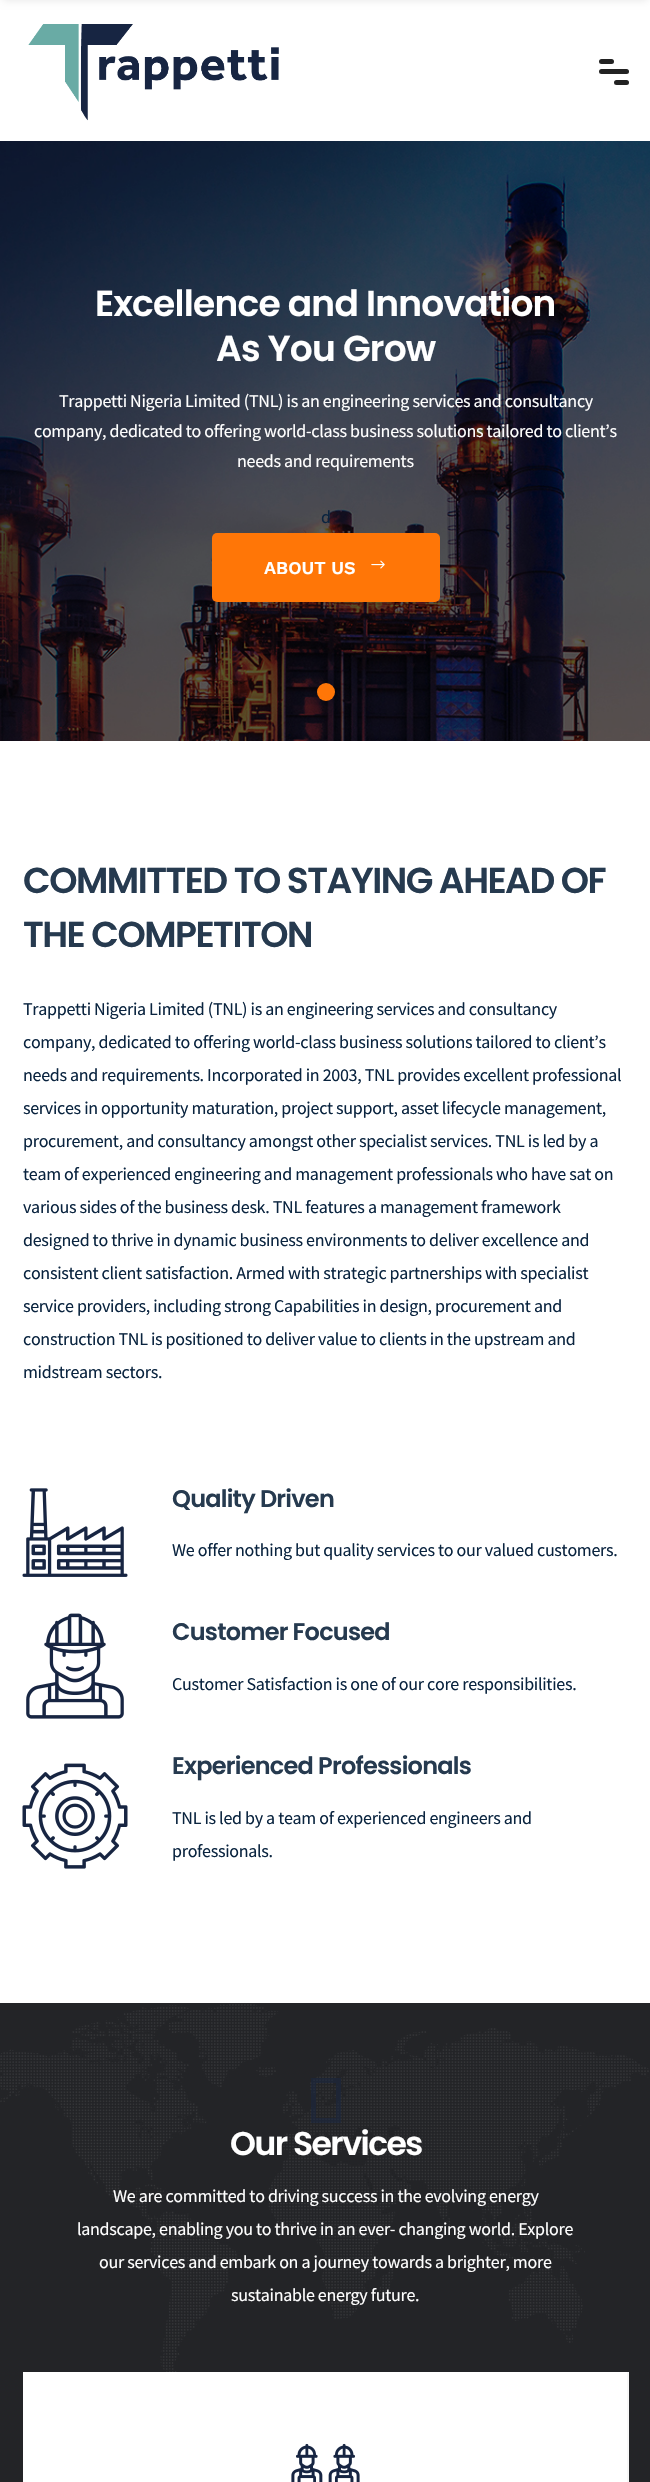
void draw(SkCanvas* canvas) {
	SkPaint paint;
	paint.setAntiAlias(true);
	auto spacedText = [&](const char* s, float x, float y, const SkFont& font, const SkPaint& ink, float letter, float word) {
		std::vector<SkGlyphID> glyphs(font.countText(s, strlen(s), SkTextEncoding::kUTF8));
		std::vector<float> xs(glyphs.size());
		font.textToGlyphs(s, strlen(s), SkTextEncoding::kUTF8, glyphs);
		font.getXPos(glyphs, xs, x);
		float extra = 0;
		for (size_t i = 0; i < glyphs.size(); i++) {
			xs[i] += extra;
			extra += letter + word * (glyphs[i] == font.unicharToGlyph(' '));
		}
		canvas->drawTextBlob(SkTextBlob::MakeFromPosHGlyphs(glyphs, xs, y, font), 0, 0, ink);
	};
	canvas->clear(0xffffffff);
	paint.setColor(0x1a000000);
	paint.setMaskFilter(SkMaskFilter::MakeBlur(kNormal_SkBlurStyle, 4));
	canvas->drawRect(SkRect::MakeXYWH(3, -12, 645, 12), paint);
	paint.setMaskFilter(nullptr);
	canvas->drawImageRect(SkImages::DeferredFromEncodedData(SkData::MakeFromFileName("img1.png")), SkRect::MakeXYWH(28, 24, 251, 97), SkSamplingOptions());
	paint.setColor(0xff222222);
	canvas->drawRoundRect(SkRect::MakeXYWH(599, 59, 15, 5), 2.5, 2.5, paint);
	canvas->drawRoundRect(SkRect::MakeXYWH(599, 69, 30, 5), 2.5, 2.5, paint);
	canvas->drawRoundRect(SkRect::MakeXYWH(614, 80, 15, 5), 2.5, 2.5, paint);
	canvas->drawImageRect(SkImages::DeferredFromEncodedData(SkData::MakeFromFileName("img2.png")), SkRect::MakeXYWH(0, 141, 650, 600), SkSamplingOptions());
	SkFont f1(fontMgr->matchFamilyStyle("Poppins", SkFontStyle(600, SkFontStyle::kNormal_Width, SkFontStyle::kUpright_Slant)), 36);
	f1.setSubpixel(true);
	paint.setColor(0xffffffff);
	spacedText("Excellence and Innovation", 95, 316, f1, paint, -0.75, 0);
	spacedText("As You Grow", 216, 361, f1, paint, -0.75, 0);
	SkFont f2(fontMgr->matchFamilyStyle("Source Sans Pro", SkFontStyle::Normal()), 18);
	f2.setSubpixel(true);
	spacedText("Trappetti Nigeria Limited (TNL) is an engineering services and consultancy", 59, 407, f2, paint, -0.3, 0);
	spacedText("company, dedicated to offering world-class business solutions tailored to client’s", 34, 437, f2, paint, -0.3, 0);
	spacedText("needs and requirements", 237, 467, f2, paint, -0.3, 0);
	paint.setColor(0xff0a243f);
	spacedText("d", 321, 523, f2, paint, -0.3, 0);
	paint.setColor(0xffff7607);
	canvas->drawRoundRect(SkRect::MakeXYWH(212, 533, 228, 69), 5, 5, paint);
	SkFont f3(fontMgr->matchFamilyStyle("Work Sans", SkFontStyle(600, SkFontStyle::kNormal_Width, SkFontStyle::kUpright_Slant)), 18);
	f3.setSubpixel(true);
	paint.setColor(0xffffffff);
	canvas->drawString("ABOUT US", 264, 574, f3, paint);
	canvas->drawImageRect(SkImages::DeferredFromEncodedData(SkData::MakeFromFileName("img3.png")), SkRect::MakeXYWH(371, 560, 14, 9), SkSamplingOptions());
	paint.setColor(0xffff7607);
	canvas->drawCircle(326, 692, 9, paint);
	paint.setColor(0xff263a4f);
	spacedText("COMMITTED TO STAYING AHEAD OF", 23, 893, f1, paint, -1.5, 0);
	spacedText("THE COMPETITON", 23, 947, f1, paint, -1.5, 0);
	paint.setColor(0xff0a243f);
	spacedText("Trappetti Nigeria Limited (TNL) is an engineering services and consultancy", 23, 1015, f2, paint, -0.3, 0);
	spacedText("company, dedicated to offering world-class business solutions tailored to client’s", 23, 1048, f2, paint, -0.3, 0);
	spacedText("needs and requirements. Incorporated in 2003, TNL provides excellent professional", 23, 1081, f2, paint, -0.3, 0);
	spacedText("services in opportunity maturation, project support, asset lifecycle management,", 23, 1114, f2, paint, -0.3, 0);
	spacedText("procurement, and consultancy amongst other specialist services. TNL is led by a", 23, 1147, f2, paint, -0.3, 0);
	spacedText("team of experienced engineering and management professionals who have sat on", 23, 1180, f2, paint, -0.3, 0);
	spacedText("various sides of the business desk. TNL features a management framework", 23, 1213, f2, paint, -0.3, 0);
	spacedText("designed to thrive in dynamic business environments to deliver excellence and", 23, 1246, f2, paint, -0.3, 0);
	spacedText("consistent client satisfaction. Armed with strategic partnerships with specialist", 23, 1279, f2, paint, -0.3, 0);
	spacedText("service providers, including strong Capabilities in design, procurement and", 23, 1312, f2, paint, -0.3, 0);
	spacedText("construction TNL is positioned to deliver value to clients in the upstream and", 23, 1345, f2, paint, -0.3, 0);
	spacedText("midstream sectors.", 23, 1378, f2, paint, -0.3, 0);
	canvas->drawImageRect(SkImages::DeferredFromEncodedData(SkData::MakeFromFileName("img4.png")), SkRect::MakeXYWH(22, 1488, 106, 89), SkSamplingOptions());
	SkFont f4(fontMgr->matchFamilyStyle("Poppins", SkFontStyle(600, SkFontStyle::kNormal_Width, SkFontStyle::kUpright_Slant)), 24);
	f4.setSubpixel(true);
	paint.setColor(0xff263a4f);
	spacedText("Quality Driven", 172, 1507, f4, paint, -0.75, 0);
	paint.setColor(0xff0a243f);
	spacedText("We offer nothing but quality services to our valued customers.", 172, 1556, f2, paint, -0.3, 0);
	canvas->drawImageRect(SkImages::DeferredFromEncodedData(SkData::MakeFromFileName("img5.png")), SkRect::MakeXYWH(26, 1613, 98, 106), SkSamplingOptions());
	paint.setColor(0xff263a4f);
	spacedText("Customer Focused", 172, 1640, f4, paint, -0.75, 0);
	paint.setColor(0xff0a243f);
	spacedText("Customer Satisfaction is one of our core responsibilities.", 172, 1690, f2, paint, -0.3, 0);
	canvas->drawImageRect(SkImages::DeferredFromEncodedData(SkData::MakeFromFileName("img6.png")), SkRect::MakeXYWH(22, 1763, 106, 106), SkSamplingOptions());
	paint.setColor(0xff263a4f);
	spacedText("Experienced Professionals", 172, 1774, f4, paint, -0.75, 0);
	paint.setColor(0xff0a243f);
	spacedText("TNL is led by a team of experienced engineers and", 172, 1824, f2, paint, -0.3, 0);
	spacedText("professionals.", 172, 1857, f2, paint, -0.3, 0);
	paint.setColor(0xff232427);
	canvas->drawRect(SkRect::MakeXYWH(0, 2003, 650, 479), paint);
	canvas->drawImageRect(SkImages::DeferredFromEncodedData(SkData::MakeFromFileName("img7.png")), SkRect::MakeXYWH(0, 2004, 649, 368), SkSamplingOptions());
	paint.setStroke(true);
	paint.setStrokeWidth(5);
	paint.setColor(0x80172542);
	canvas->drawRect(SkRect::MakeXYWH(313.5, 2080.5, 25, 40), paint);
	SkFont f5(fontMgr->matchFamilyStyle("Poppins", SkFontStyle(600, SkFontStyle::kNormal_Width, SkFontStyle::kUpright_Slant)), 33);
	f5.setSubpixel(true);
	paint.setStroke(false);
	paint.setColor(0xffffffff);
	spacedText("Our Services", 230, 2155, f5, paint, -1.5, 0);
	spacedText("We are committed to driving success in the evolving energy", 113, 2202, f2, paint, -0.3, 0);
	spacedText("landscape, enabling you to thrive in an ever- changing world. Explore", 77, 2235, f2, paint, -0.3, 0);
	spacedText("our services and embark on a journey towards a brighter, more", 99, 2268, f2, paint, -0.3, 0);
	spacedText("sustainable energy future.", 231, 2301, f2, paint, -0.3, 0);
	canvas->drawRect(SkRect::MakeXYWH(23, 2372, 604, 110), paint);
	paint.setColor(0xfff7f7f7);
	canvas->drawRect(SkRect::MakeXYWH(627, 2372, 2, 110), paint);
	canvas->drawImageRect(SkImages::DeferredFromEncodedData(SkData::MakeFromFileName("img8.png")), SkRect::MakeXYWH(291, 2443, 69, 39), SkSamplingOptions());
}
